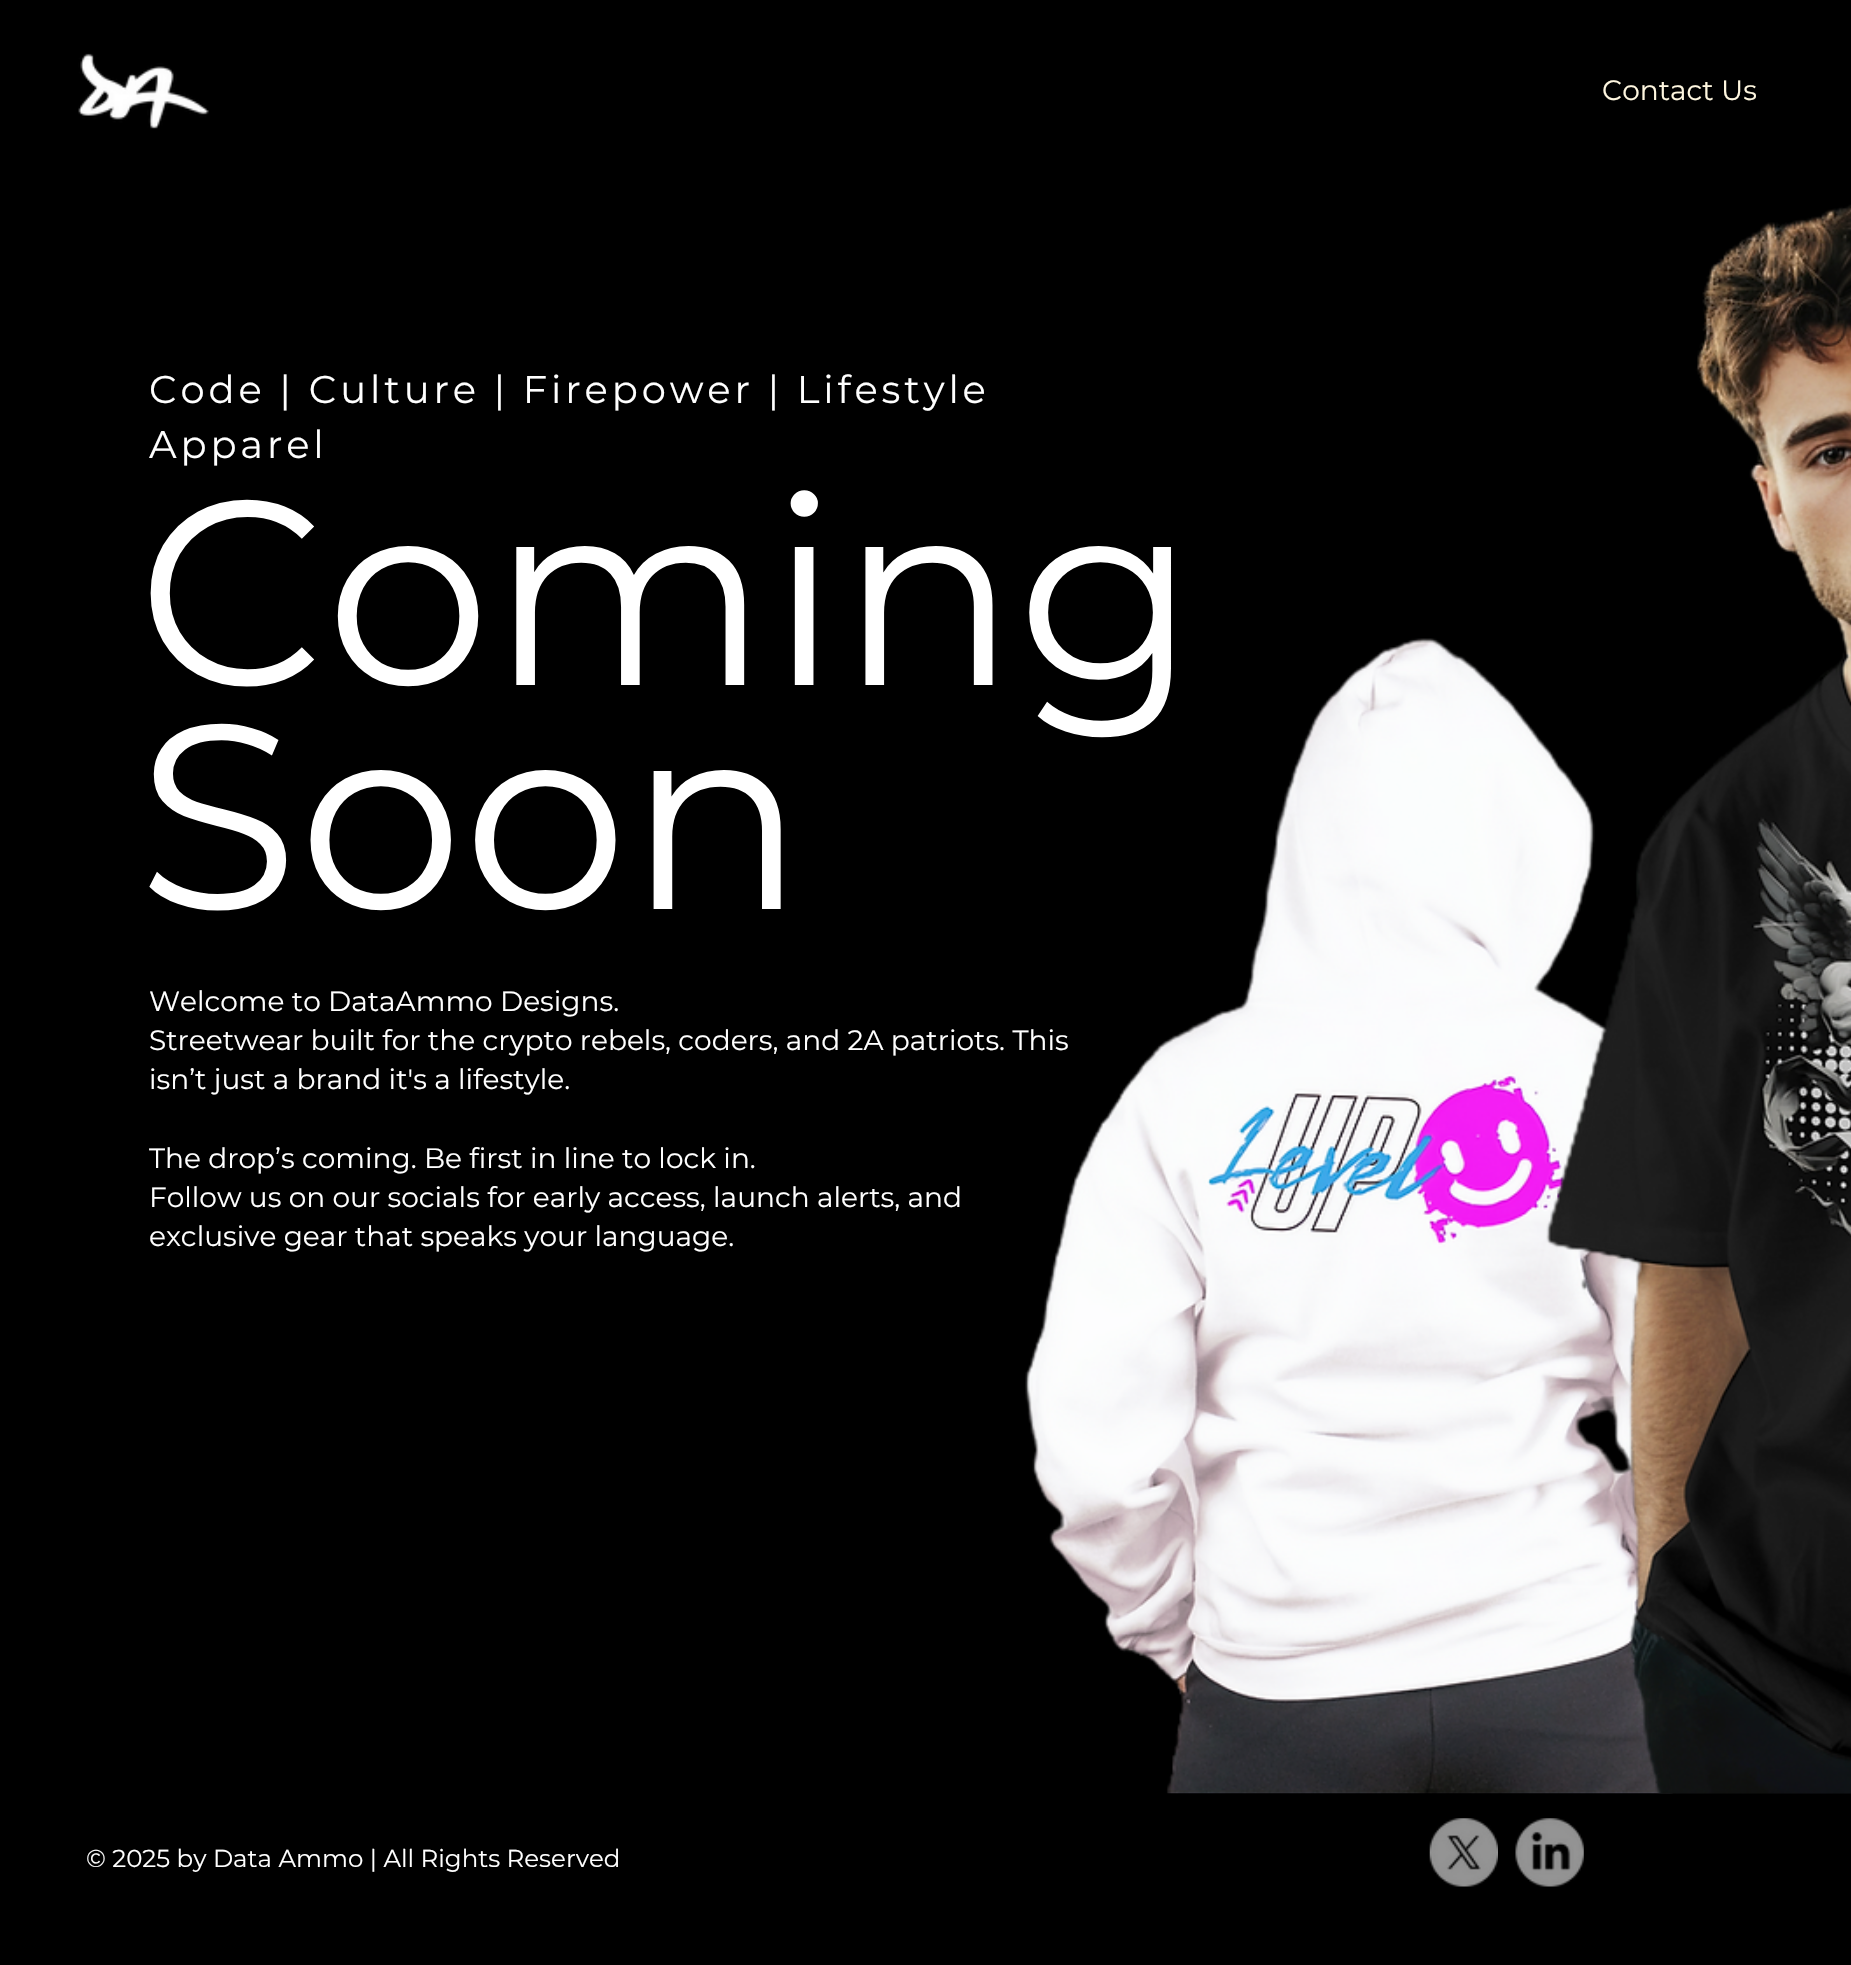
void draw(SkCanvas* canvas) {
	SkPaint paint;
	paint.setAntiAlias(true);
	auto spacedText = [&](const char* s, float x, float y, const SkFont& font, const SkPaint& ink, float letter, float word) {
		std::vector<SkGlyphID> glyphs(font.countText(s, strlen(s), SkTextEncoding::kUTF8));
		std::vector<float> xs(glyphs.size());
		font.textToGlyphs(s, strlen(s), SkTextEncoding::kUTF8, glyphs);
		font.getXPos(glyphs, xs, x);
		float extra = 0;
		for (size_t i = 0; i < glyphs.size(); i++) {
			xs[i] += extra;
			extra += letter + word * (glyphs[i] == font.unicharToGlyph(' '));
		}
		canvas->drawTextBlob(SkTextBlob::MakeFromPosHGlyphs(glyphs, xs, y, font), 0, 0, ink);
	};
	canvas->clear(0xff000000);
	canvas->drawImageRect(SkImages::DeferredFromEncodedData(SkData::MakeFromFileName("img1.png")), SkRect::MakeXYWH(78, 53, 131, 76), SkSamplingOptions());
	SkFont f1(fontMgr->matchFamilyStyle("Montserrat", SkFontStyle::Normal()), 28);
	f1.setSubpixel(true);
	paint.setColor(0xfffff7e0);
	canvas->drawString("Contact Us", 1602, 100, f1, paint);
	SkFont f2(fontMgr->matchFamilyStyle("Montserrat", SkFontStyle::Normal()), 38.5);
	f2.setSubpixel(true);
	paint.setColor(0xffffffff);
	spacedText("Code | Culture | Firepower | Lifestyle", 149, 403, f2, paint, 3.85, 0);
	spacedText("Apparel", 149, 458, f2, paint, 3.85, 0);
	canvas->drawImageRect(SkImages::DeferredFromEncodedData(SkData::MakeFromFileName("img3.png")), SkRect::MakeXYWH(1025, 638, 648, 1156), SkSamplingOptions());
	canvas->drawImageRect(SkImages::DeferredFromEncodedData(SkData::MakeFromFileName("img2.png")), SkRect::MakeXYWH(1546, 204, 305, 1590), SkSamplingOptions());
	SkFont f3(fontMgr->matchFamilyStyle("Montserrat", SkFontStyle::Normal()), 262.5);
	f3.setSubpixel(true);
	canvas->drawString("Coming", 137, 685, f3, paint);
	canvas->drawString("Soon", 137, 909, f3, paint);
	canvas->drawString("Welcome to DataAmmo Designs.", 149, 1011, f1, paint);
	canvas->drawString("Streetwear built for the crypto rebels, coders, and 2A patriots. This", 149, 1050, f1, paint);
	canvas->drawString("isn’t just a brand it's a lifestyle.", 149, 1089, f1, paint);
	canvas->drawString("The drop’s coming. Be first in line to lock in.", 149, 1168, f1, paint);
	canvas->drawString("Follow us on our socials for early access, launch alerts, and", 149, 1207, f1, paint);
	canvas->drawString("exclusive gear that speaks your language.", 149, 1246, f1, paint);
	SkFont f4(fontMgr->matchFamilyStyle("Montserrat", SkFontStyle::Normal()), 24.5);
	f4.setSubpixel(true);
	canvas->drawString("© 2025 by Data Ammo | All Rights Reserved", 86, 1867, f4, paint);
	canvas->drawImageRect(SkImages::DeferredFromEncodedData(SkData::MakeFromFileName("img4.png")), SkRect::MakeXYWH(1429, 1818, 69, 69), SkSamplingOptions());
	canvas->drawImageRect(SkImages::DeferredFromEncodedData(SkData::MakeFromFileName("img5.png")), SkRect::MakeXYWH(1515, 1818, 69, 69), SkSamplingOptions());
}
